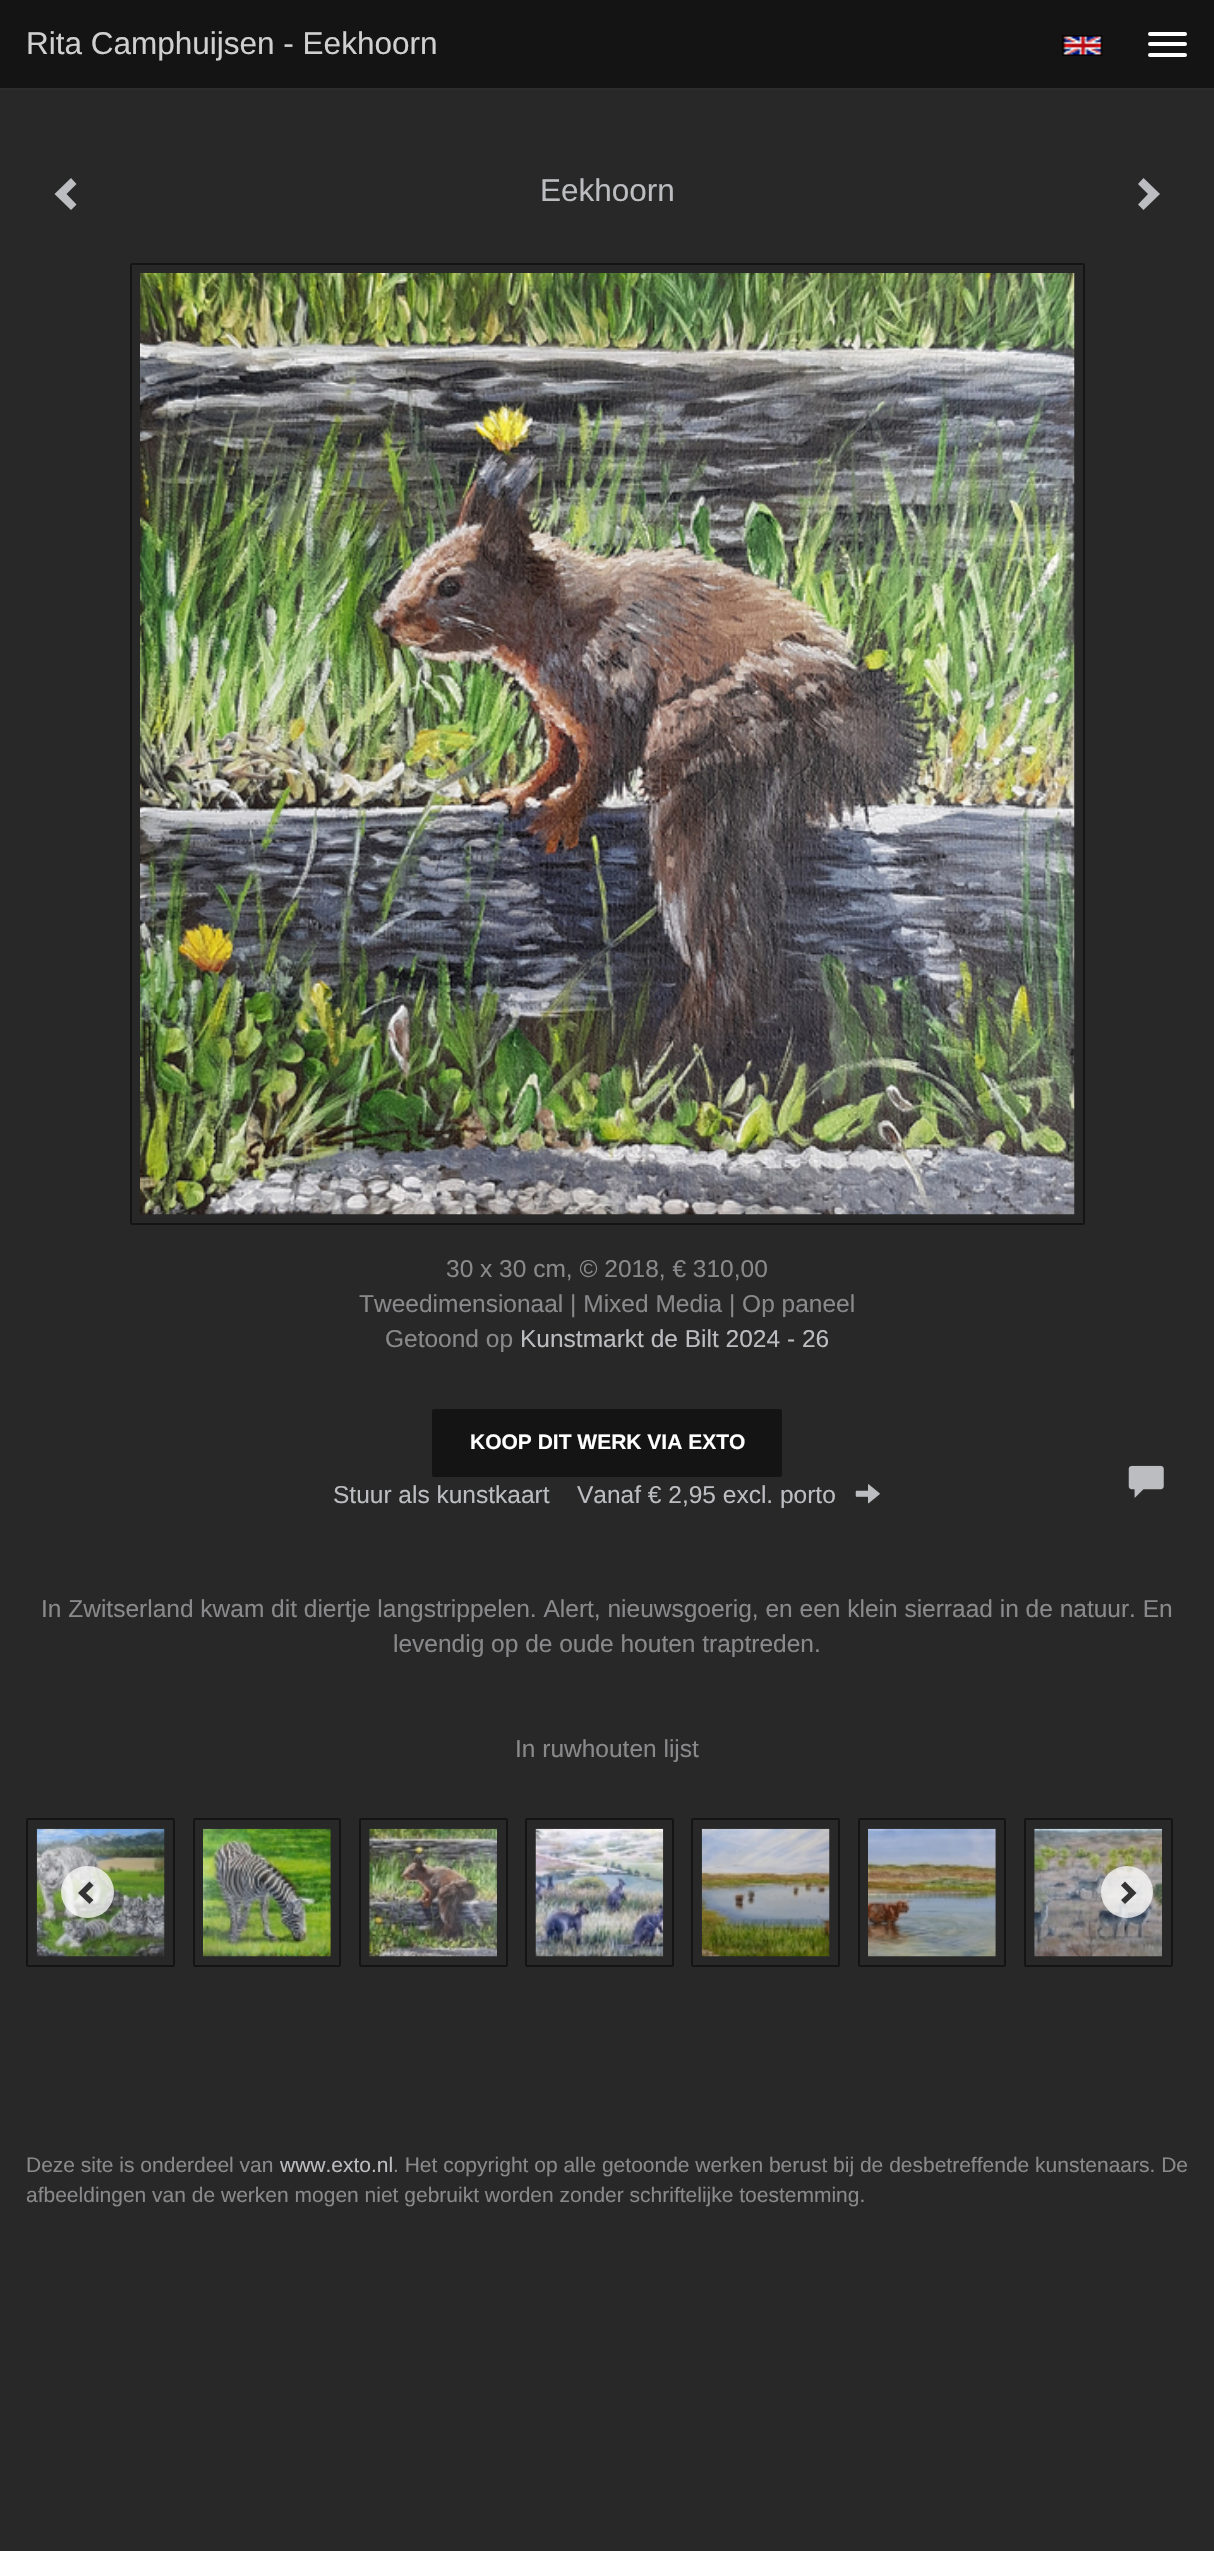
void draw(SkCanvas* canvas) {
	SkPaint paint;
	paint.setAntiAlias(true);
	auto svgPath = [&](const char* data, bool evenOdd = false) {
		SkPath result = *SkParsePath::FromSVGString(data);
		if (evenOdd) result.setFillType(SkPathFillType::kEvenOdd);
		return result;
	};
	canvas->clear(0xff282828);
	paint.setColor(0xff141414);
	canvas->drawRect(SkRect::MakeXYWH(0, 0, 1214, 88), paint);
	paint.setColor(0xff2d2d2d);
	canvas->drawRect(SkRect::MakeXYWH(0, 88, 1214, 2), paint);
	SkFont f1(fontMgr->matchFamilyStyle("Liberation Sans", SkFontStyle::Normal()), 31.5);
	f1.setSubpixel(true);
	paint.setColor(0xffd0d0d0);
	canvas->drawString("Rita Camphuijsen - Eekhoorn", 26, 54, f1, paint);
	paint.setColor(0xffffffff);
	canvas->drawRoundRect(SkRect::MakeXYWH(1148, 32, 39, 4), 2, 2, paint);
	canvas->drawRoundRect(SkRect::MakeXYWH(1148, 42, 39, 4), 2, 2, paint);
	canvas->drawRoundRect(SkRect::MakeXYWH(1148, 53, 39, 4), 2, 2, paint);
	canvas->drawImageRect(SkImages::DeferredFromEncodedData(SkData::MakeFromFileName("img1.png")), SkRect::MakeXYWH(1062, 35, 41, 21), SkSamplingOptions());
	paint.setColor(0xffbcbdc0);
	canvas->drawPath(svgPath("M76.5 184L66.5 194L76.5 204.5L71 210L54.5 194L71 178Z"), paint);
	canvas->drawString("Eekhoorn", 540, 201, f1, paint);
	canvas->drawPath(svgPath("M1160 194L1143.5 210L1138 204.5L1148 194L1138 184L1143.5 178Z"), paint);
	paint.setStroke(true);
	paint.setStrokeWidth(2);
	paint.setColor(0xff141414);
	canvas->drawRoundRect(SkRect::MakeXYWH(131, 264, 953, 960), 1, 1, paint);
	canvas->drawImageRect(SkImages::DeferredFromEncodedData(SkData::MakeFromFileName("img2.png")), SkRect::MakeXYWH(140, 273, 935, 942), SkSamplingOptions());
	SkFont f2(fontMgr->matchFamilyStyle("Liberation Sans", SkFontStyle::Normal()), 24.5);
	f2.setSubpixel(true);
	paint.setStroke(false);
	paint.setColor(0xff89898b);
	canvas->drawString("30 x 30 cm, © 2018, € 310,00", 446, 1277, f2, paint);
	canvas->drawString("Tweedimensionaal | Mixed Media | Op paneel", 359, 1312, f2, paint);
	canvas->drawString("Getoond op", 385, 1347, f2, paint);
	paint.setColor(0xffbcbdc0);
	canvas->drawString("Kunstmarkt de Bilt 2024 - 26", 520, 1347, f2, paint);
	paint.setColor(0xff141414);
	canvas->drawRoundRect(SkRect::MakeXYWH(433, 1410, 348, 66), 1, 1, paint);
	paint.setStroke(true);
	canvas->drawRoundRect(SkRect::MakeXYWH(433, 1410, 348, 66), 1, 1, paint);
	SkFont f3(fontMgr->matchFamilyStyle("Liberation Sans", SkFontStyle::Bold()), 21);
	f3.setSubpixel(true);
	paint.setStroke(false);
	paint.setColor(0xffffffff);
	canvas->drawString("KOOP DIT WERK VIA EXTO", 470, 1449, f3, paint);
	paint.setColor(0xffbcbdc0);
	canvas->drawString("Stuur als kunstkaart", 333, 1503, f2, paint);
	canvas->drawString("Vanaf € 2,95 excl. porto", 577, 1503, f2, paint);
	canvas->drawImageRect(SkImages::DeferredFromEncodedData(SkData::MakeFromFileName("img3.png")), SkRect::MakeXYWH(855, 1484, 25, 20), SkSamplingOptions());
	canvas->drawImageRect(SkImages::DeferredFromEncodedData(SkData::MakeFromFileName("img4.png")), SkRect::MakeXYWH(1128, 1465, 36, 33), SkSamplingOptions());
	paint.setColor(0xff89898b);
	canvas->drawString("In Zwitserland kwam dit diertje langstrippelen. Alert, nieuwsgoerig, en een klein sierraad in de natuur. En", 41, 1617, f2, paint);
	canvas->drawString("levendig op de oude houten traptreden.", 393, 1652, f2, paint);
	canvas->drawString("In ruwhouten lijst", 515, 1757, f2, paint);
	paint.setStroke(true);
	paint.setColor(0xff141414);
	canvas->drawRoundRect(SkRect::MakeXYWH(27, 1819, 147, 147), 1, 1, paint);
	canvas->drawImageRect(SkImages::DeferredFromEncodedData(SkData::MakeFromFileName("img5.png")), SkRect::MakeXYWH(36, 1828, 129, 129), SkSamplingOptions());
	canvas->drawRoundRect(SkRect::MakeXYWH(194, 1819, 146, 147), 1, 1, paint);
	canvas->drawImageRect(SkImages::DeferredFromEncodedData(SkData::MakeFromFileName("img6.png")), SkRect::MakeXYWH(203, 1828, 128, 129), SkSamplingOptions());
	canvas->drawRoundRect(SkRect::MakeXYWH(360, 1819, 147, 147), 1, 1, paint);
	canvas->drawImageRect(SkImages::DeferredFromEncodedData(SkData::MakeFromFileName("img7.png")), SkRect::MakeXYWH(369, 1828, 128, 129), SkSamplingOptions());
	canvas->drawRoundRect(SkRect::MakeXYWH(526, 1819, 147, 147), 1, 1, paint);
	canvas->drawImageRect(SkImages::DeferredFromEncodedData(SkData::MakeFromFileName("img8.png")), SkRect::MakeXYWH(535, 1828, 129, 129), SkSamplingOptions());
	canvas->drawRoundRect(SkRect::MakeXYWH(692, 1819, 147, 147), 1, 1, paint);
	canvas->drawImageRect(SkImages::DeferredFromEncodedData(SkData::MakeFromFileName("img9.png")), SkRect::MakeXYWH(701, 1828, 129, 129), SkSamplingOptions());
	canvas->drawRoundRect(SkRect::MakeXYWH(859, 1819, 146, 147), 1, 1, paint);
	canvas->drawImageRect(SkImages::DeferredFromEncodedData(SkData::MakeFromFileName("img10.png")), SkRect::MakeXYWH(868, 1828, 128, 129), SkSamplingOptions());
	canvas->drawRoundRect(SkRect::MakeXYWH(1025, 1819, 147, 147), 1, 1, paint);
	canvas->drawImageRect(SkImages::DeferredFromEncodedData(SkData::MakeFromFileName("img11.png")), SkRect::MakeXYWH(1034, 1828, 128, 129), SkSamplingOptions());
	paint.setStroke(false);
	paint.setColor(0xbfffffff);
	canvas->drawRoundRect(SkRect::MakeXYWH(61, 1866, 53, 52), 26, 26, paint);
	paint.setColor(0xff333333);
	canvas->drawPath(svgPath("M93.5 1885.5L86 1893L93.5 1900L89.5 1904L78 1893L89.5 1881.5Z"), paint);
	paint.setColor(0xbfffffff);
	canvas->drawCircle(1127, 1892, 26, paint);
	paint.setColor(0xff333333);
	canvas->drawPath(svgPath("M1136.5 1893L1125 1904L1121 1900L1128.5 1893L1121 1885.5L1125 1881.5Z"), paint);
	SkFont f4(fontMgr->matchFamilyStyle("Liberation Sans", SkFontStyle::Normal()), 21);
	f4.setSubpixel(true);
	paint.setColor(0xff89898b);
	canvas->drawString("Deze site is onderdeel van", 26, 2172, f4, paint);
	paint.setColor(0xffbcbdc0);
	canvas->drawString("www.exto.nl", 280, 2172, f4, paint);
	paint.setColor(0xff89898b);
	canvas->drawString(". Het copyright op alle getoonde werken berust bij de desbetreffende kunstenaars. De", 393, 2172, f4, paint);
	canvas->drawString("afbeeldingen van de werken mogen niet gebruikt worden zonder schriftelijke toestemming.", 26, 2202, f4, paint);
}
